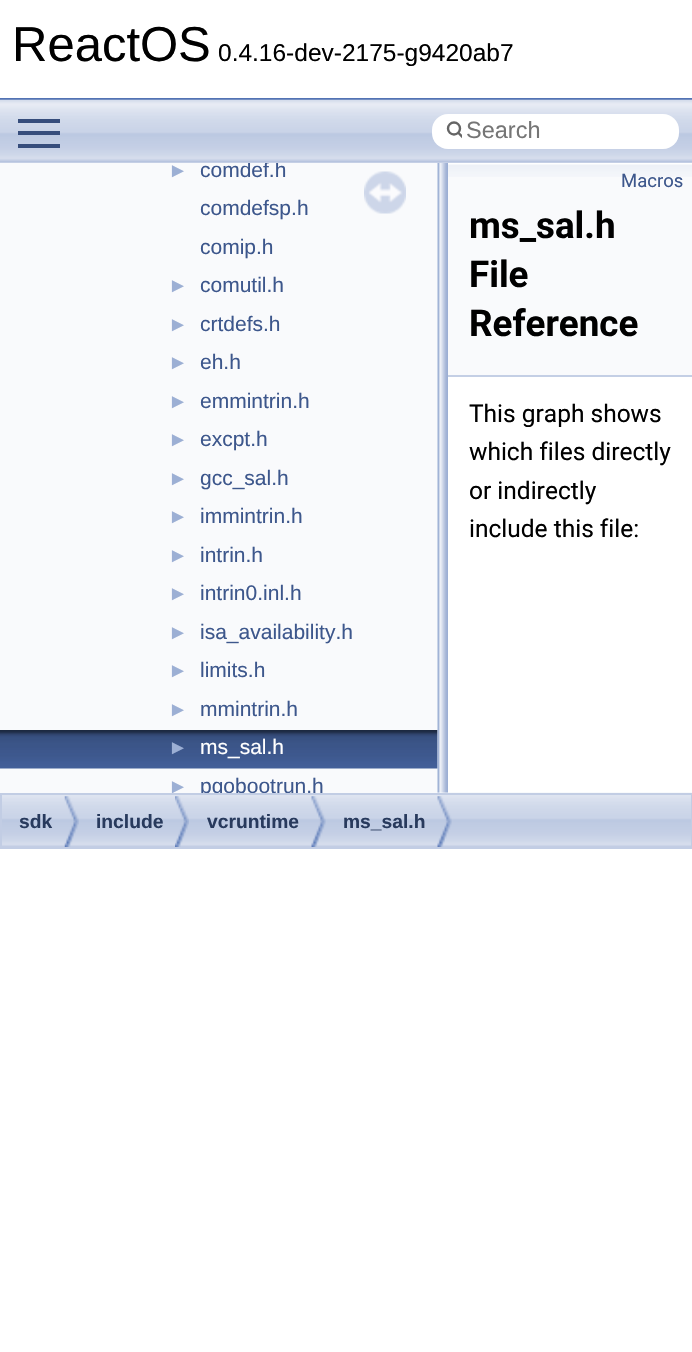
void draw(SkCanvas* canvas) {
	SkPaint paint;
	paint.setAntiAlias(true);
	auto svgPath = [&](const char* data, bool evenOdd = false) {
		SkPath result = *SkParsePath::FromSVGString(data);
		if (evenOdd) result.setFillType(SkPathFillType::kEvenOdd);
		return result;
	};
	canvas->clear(0xffffffff);
	paint.setColor(0xff5373b4);
	canvas->drawRect(SkRect::MakeXYWH(0, 98, 692, 2), paint);
	SkFont f1(fontMgr->matchFamilyStyle("Liberation Sans", SkFontStyle::Normal()), 49);
	f1.setSubpixel(true);
	paint.setColor(0xff000000);
	canvas->drawString("ReactOS", 12, 61, f1, paint);
	SkFont f2(fontMgr->matchFamilyStyle("Liberation Sans", SkFontStyle::Normal()), 24.5);
	f2.setSubpixel(true);
	canvas->drawString("0.4.16-dev-2175-g9420ab7", 218, 61, f2, paint);
	canvas->drawImageRect(SkImages::DeferredFromEncodedData(SkData::MakeFromFileName("img6.png")), SkRect::MakeXYWH(2, 792, 690, 55), SkSamplingOptions());
	paint.setColor(0xfff9fafc);
	canvas->drawRect(SkRect::MakeXYWH(0, 163, 438, 630), paint);
	canvas->drawImageRect(SkImages::DeferredFromEncodedData(SkData::MakeFromFileName("img2.png")), SkRect::MakeXYWH(0, 730, 438, 39), SkSamplingOptions());
	canvas->drawImageRect(SkImages::DeferredFromEncodedData(SkData::MakeFromFileName("img4.png")), SkRect::MakeXYWH(437, 162, 11, 631), SkSamplingOptions());
	canvas->drawImageRect(SkImages::DeferredFromEncodedData(SkData::MakeFromFileName("img1.png")), SkRect::MakeXYWH(0, 99, 692, 64), SkSamplingOptions());
	paint.setColor(0xff364d7c);
	canvas->drawRect(SkRect::MakeXYWH(18, 131, 42, 4), paint);
	canvas->drawRect(SkRect::MakeXYWH(18, 119, 42, 4), paint);
	canvas->drawRect(SkRect::MakeXYWH(18, 144, 42, 4), paint);
	paint.setColor(0xffffffff);
	canvas->drawRoundRect(SkRect::MakeXYWH(432, 114, 247, 35), 16, 16, paint);
	paint.setStroke(true);
	paint.setStrokeWidth(2.4);
	paint.setColor(0xff656565);
	canvas->drawCircle(454, 128.5, 6, paint);
	canvas->save();
	canvas->clipRect(SkRect::MakeXYWH(445, 114, 17, 33));
	paint.setStrokeCap(SkPaint::kRound_Cap);
	canvas->drawPath(svgPath("M458.5 133L463.5 138"), paint);
	canvas->restore();
	SkFont f3(fontMgr->matchFamilyStyle("Liberation Sans", SkFontStyle::Normal()), 23.5);
	f3.setSubpixel(true);
	paint.setStroke(false);
	paint.setColor(0xff757575);
	canvas->drawString("Search", 466, 138, f3, paint);
	SkFont f4(fontMgr->matchFamilyStyle("Liberation Sans", SkFontStyle::Normal()), 20);
	f4.setSubpixel(true);
	paint.setColor(0xff9cafd4);
	canvas->drawString("►", 168, 177, f4, paint);
	canvas->save();
	canvas->clipRect(SkRect::MakeXYWH(0, 163, 438, 630));
	SkFont f5(fontMgr->matchFamilyStyle("Liberation Sans", SkFontStyle::Normal()), 21);
	f5.setSubpixel(true);
	paint.setColor(0xff3d578c);
	canvas->drawString("comdef.h", 200, 177, f5, paint);
	canvas->restore();
	canvas->drawString("comdefsp.h", 200, 215, f5, paint);
	canvas->drawString("comip.h", 200, 254, f5, paint);
	paint.setColor(0xff9cafd4);
	canvas->drawString("►", 168, 292, f4, paint);
	paint.setColor(0xff3d578c);
	canvas->drawString("comutil.h", 200, 292, f5, paint);
	paint.setColor(0xff9cafd4);
	canvas->drawString("►", 168, 331, f4, paint);
	paint.setColor(0xff3d578c);
	canvas->drawString("crtdefs.h", 200, 331, f5, paint);
	paint.setColor(0xff9cafd4);
	canvas->drawString("►", 168, 369, f4, paint);
	paint.setColor(0xff3d578c);
	canvas->drawString("eh.h", 200, 369, f5, paint);
	paint.setColor(0xff9cafd4);
	canvas->drawString("►", 168, 408, f4, paint);
	paint.setColor(0xff3d578c);
	canvas->drawString("emmintrin.h", 200, 408, f5, paint);
	paint.setColor(0xff9cafd4);
	canvas->drawString("►", 168, 446, f4, paint);
	paint.setColor(0xff3d578c);
	canvas->drawString("excpt.h", 200, 446, f5, paint);
	paint.setColor(0xff9cafd4);
	canvas->drawString("►", 168, 485, f4, paint);
	paint.setColor(0xff3d578c);
	canvas->drawString("gcc_sal.h", 200, 485, f5, paint);
	paint.setColor(0xff9cafd4);
	canvas->drawString("►", 168, 523, f4, paint);
	paint.setColor(0xff3d578c);
	canvas->drawString("immintrin.h", 200, 523, f5, paint);
	paint.setColor(0xff9cafd4);
	canvas->drawString("►", 168, 562, f4, paint);
	paint.setColor(0xff3d578c);
	canvas->drawString("intrin.h", 200, 562, f5, paint);
	paint.setColor(0xff9cafd4);
	canvas->drawString("►", 168, 600, f4, paint);
	paint.setColor(0xff3d578c);
	canvas->drawString("intrin0.inl.h", 200, 600, f5, paint);
	paint.setColor(0xff9cafd4);
	canvas->drawString("►", 168, 639, f4, paint);
	paint.setColor(0xff3d578c);
	canvas->drawString("isa_availability.h", 200, 639, f5, paint);
	paint.setColor(0xff9cafd4);
	canvas->drawString("►", 168, 677, f4, paint);
	paint.setColor(0xff3d578c);
	canvas->drawString("limits.h", 200, 677, f5, paint);
	paint.setColor(0xff9cafd4);
	canvas->drawString("►", 168, 716, f4, paint);
	paint.setColor(0xff3d578c);
	canvas->drawString("mmintrin.h", 200, 716, f5, paint);
	paint.setColor(0xff9cafd4);
	canvas->drawString("►", 168, 754, f4, paint);
	paint.setColor(0xffffffff);
	canvas->drawString("ms_sal.h", 200, 754, f5, paint);
	paint.setColor(0xff9cafd4);
	canvas->drawString("►", 168, 793, f4, paint);
	canvas->save();
	canvas->clipRect(SkRect::MakeXYWH(0, 163, 438, 630));
	paint.setColor(0xff3d578c);
	canvas->drawString("pgobootrun.h", 200, 793, f5, paint);
	canvas->restore();
	canvas->drawImageRect(SkImages::DeferredFromEncodedData(SkData::MakeFromFileName("img3.png")), SkRect::MakeXYWH(364, 171, 42, 43), SkSamplingOptions());
	paint.setColor(0xfff9fafc);
	canvas->drawRect(SkRect::MakeXYWH(448, 177, 244, 198), paint);
	canvas->drawImageRect(SkImages::DeferredFromEncodedData(SkData::MakeFromFileName("img5.png")), SkRect::MakeXYWH(448, 163, 244, 14), SkSamplingOptions());
	paint.setColor(0xffc4cfe5);
	canvas->drawRect(SkRect::MakeXYWH(448, 375, 244, 2), paint);
	SkFont f6(fontMgr->matchFamilyStyle("Roboto", SkFontStyle::Normal()), 18.5);
	f6.setSubpixel(true);
	paint.setColor(0xff3d578c);
	canvas->drawString("Macros", 621, 187, f6, paint);
	SkFont f7(fontMgr->matchFamilyStyle("Roboto", SkFontStyle::Bold()), 36.75);
	f7.setSubpixel(true);
	paint.setColor(0xff000000);
	canvas->drawString("ms_sal.h", 469, 238, f7, paint);
	canvas->drawString("File", 469, 287, f7, paint);
	canvas->drawString("Reference", 469, 336, f7, paint);
	SkFont f8(fontMgr->matchFamilyStyle("Roboto", SkFontStyle::Normal()), 24.5);
	f8.setSubpixel(true);
	canvas->drawString("This graph shows", 469, 422, f8, paint);
	canvas->drawString("which files directly", 469, 460, f8, paint);
	canvas->drawString("or indirectly", 469, 499, f8, paint);
	canvas->drawString("include this file:", 469, 537, f8, paint);
	paint.setStroke(true);
	paint.setStrokeWidth(2);
	paint.setStrokeCap(SkPaint::kButt_Cap);
	paint.setColor(0xffc2cde4);
	canvas->drawRect(SkRect::MakeXYWH(1, 794, 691, 54), paint);
	canvas->drawImageRect(SkImages::DeferredFromEncodedData(SkData::MakeFromFileName("img7.png")), SkRect::MakeXYWH(64, 796, 15, 51), SkSamplingOptions());
	SkFont f9(fontMgr->matchFamilyStyle("Liberation Sans", SkFontStyle::Bold()), 19.25);
	f9.setSubpixel(true);
	paint.setStroke(false);
	paint.setColor(0xff283a5d);
	canvas->drawString("sdk", 19, 828, f9, paint);
	canvas->drawImageRect(SkImages::DeferredFromEncodedData(SkData::MakeFromFileName("img8.png")), SkRect::MakeXYWH(175, 796, 14, 51), SkSamplingOptions());
	canvas->drawString("include", 96, 828, f9, paint);
	canvas->drawImageRect(SkImages::DeferredFromEncodedData(SkData::MakeFromFileName("img9.png")), SkRect::MakeXYWH(311, 796, 15, 51), SkSamplingOptions());
	canvas->drawString("vcruntime", 207, 828, f9, paint);
	canvas->drawImageRect(SkImages::DeferredFromEncodedData(SkData::MakeFromFileName("img10.png")), SkRect::MakeXYWH(437, 796, 15, 51), SkSamplingOptions());
	canvas->drawString("ms_sal.h", 343, 828, f9, paint);
}
